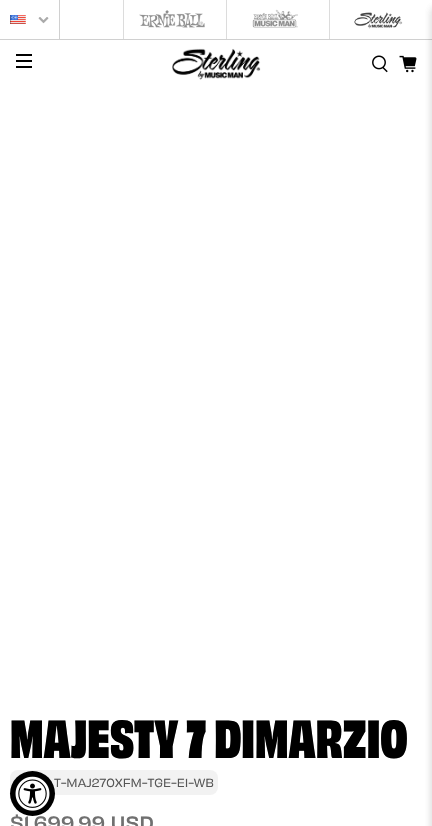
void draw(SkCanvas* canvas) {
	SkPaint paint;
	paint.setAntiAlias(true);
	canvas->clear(0xffffffff);
	paint.setColor(0xffd0d0d0);
	canvas->drawRect(SkRect::MakeXYWH(0, 39, 432, 1), paint);
	canvas->drawRect(SkRect::MakeXYWH(59, 0, 1, 39), paint);
	canvas->drawImageRect(SkImages::DeferredFromEncodedData(SkData::MakeFromFileName("img1.png")), SkRect::MakeXYWH(10, 15, 16, 9), SkSamplingOptions());
	canvas->drawImageRect(SkImages::DeferredFromEncodedData(SkData::MakeFromFileName("img2.png")), SkRect::MakeXYWH(38, 17, 11, 7), SkSamplingOptions());
	paint.setColor(0xffdcdcdc);
	canvas->drawRect(SkRect::MakeXYWH(123, 0, 1, 39), paint);
	canvas->drawImageRect(SkImages::DeferredFromEncodedData(SkData::MakeFromFileName("img3.png")), SkRect::MakeXYWH(139, 10, 66, 18), SkSamplingOptions());
	canvas->drawRect(SkRect::MakeXYWH(226, 0, 1, 39), paint);
	canvas->drawImageRect(SkImages::DeferredFromEncodedData(SkData::MakeFromFileName("img4.png")), SkRect::MakeXYWH(252, 9, 46, 19), SkSamplingOptions());
	canvas->drawRect(SkRect::MakeXYWH(329, 0, 1, 39), paint);
	canvas->drawImageRect(SkImages::DeferredFromEncodedData(SkData::MakeFromFileName("img5.png")), SkRect::MakeXYWH(354, 12, 49, 17), SkSamplingOptions());
	paint.setColor(0xff000000);
	canvas->drawRect(SkRect::MakeXYWH(16, 54, 16, 2), paint);
	canvas->drawRect(SkRect::MakeXYWH(16, 60, 16, 2), paint);
	canvas->drawRect(SkRect::MakeXYWH(16, 66, 16, 2), paint);
	canvas->drawImageRect(SkImages::DeferredFromEncodedData(SkData::MakeFromFileName("img6.png")), SkRect::MakeXYWH(172, 48, 89, 32), SkSamplingOptions());
	canvas->drawImageRect(SkImages::DeferredFromEncodedData(SkData::MakeFromFileName("img7.png")), SkRect::MakeXYWH(372, 55, 16, 18), SkSamplingOptions());
	canvas->drawImageRect(SkImages::DeferredFromEncodedData(SkData::MakeFromFileName("img8.png")), SkRect::MakeXYWH(399, 55, 18, 18), SkSamplingOptions());
	paint.setColor(0x1a0a0a0a);
	paint.setMaskFilter(SkMaskFilter::MakeBlur(kNormal_SkBlurStyle, 4));
	canvas->drawRect(SkRect::MakeXYWH(432, 8, 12, 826), paint);
	paint.setMaskFilter(nullptr);
	SkFont f1(fontMgr->matchFamilyStyle("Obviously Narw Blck", SkFontStyle(500, SkFontStyle::kNormal_Width, SkFontStyle::kUpright_Slant)), 50);
	f1.setSubpixel(true);
	paint.setColor(0xff000000);
	canvas->drawString("MAJESTY 7 DIMARZIO", 10, 758, f1, paint);
	paint.setColor(0xfff2f2f2);
	canvas->drawRoundRect(SkRect::MakeXYWH(10, 770, 208, 25), 8, 8, paint);
	SkFont f2(fontMgr->matchFamilyStyle("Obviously", SkFontStyle(600, SkFontStyle::kNormal_Width, SkFontStyle::kUpright_Slant)), 11);
	f2.setSubpixel(true);
	paint.setColor(0xff565656);
	canvas->drawString("T-MAJ270XFM-TGE-E1-WB", 54, 787, f2, paint);
	SkFont f3(fontMgr->matchFamilyStyle("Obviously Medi", SkFontStyle(600, SkFontStyle::kNormal_Width, SkFontStyle::kUpright_Slant)), 18);
	f3.setSubpixel(true);
	paint.setColor(0xff707070);
	canvas->drawString("$1,699.99 USD", 10, 830, f3, paint);
	paint.setColor(0x1a0a0a0a);
	paint.setMaskFilter(SkMaskFilter::MakeBlur(kNormal_SkBlurStyle, 4));
	canvas->drawRect(SkRect::MakeXYWH(432, 8, 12, 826), paint);
	paint.setMaskFilter(nullptr);
	paint.setColor(0xff000000);
	canvas->drawCircle(32.5, 793.5, 22.5, paint);
	canvas->drawImageRect(SkImages::DeferredFromEncodedData(SkData::MakeFromFileName("img9.png")), SkRect::MakeXYWH(15, 776, 35, 35), SkSamplingOptions());
}
